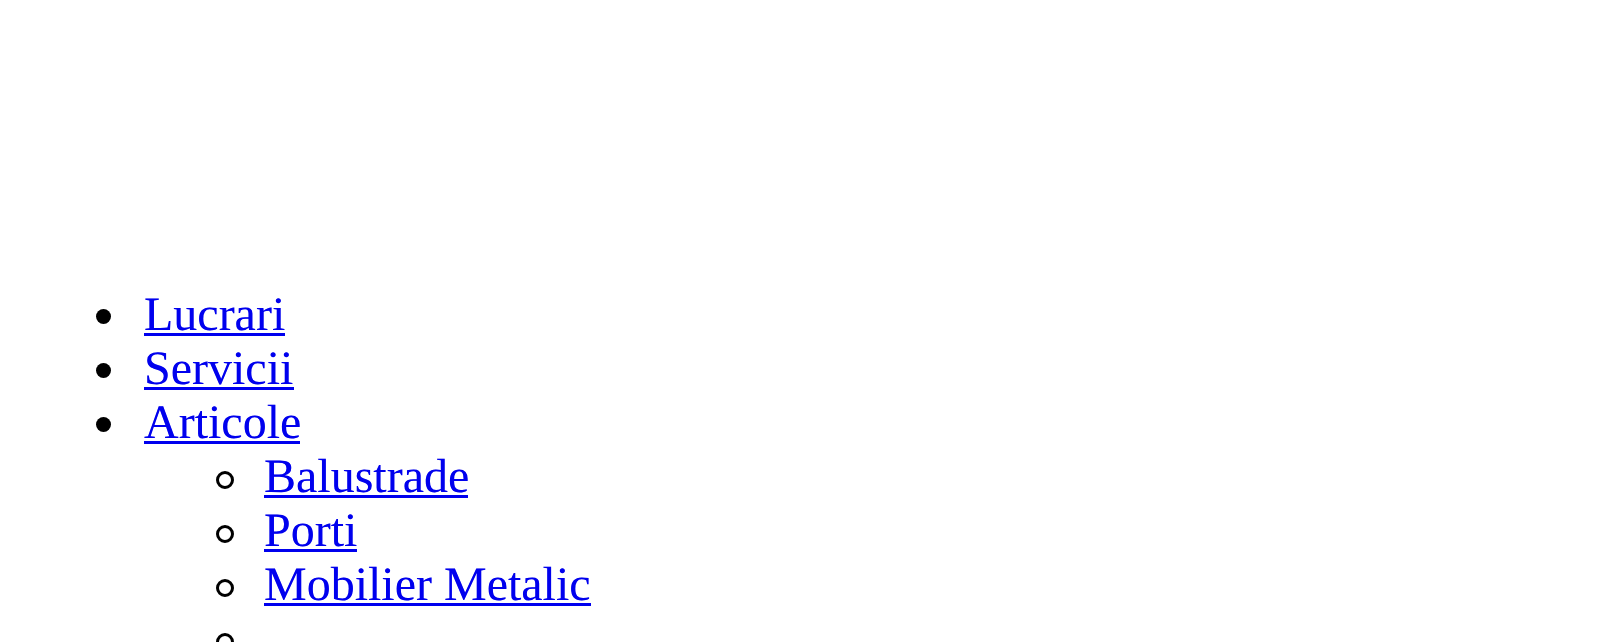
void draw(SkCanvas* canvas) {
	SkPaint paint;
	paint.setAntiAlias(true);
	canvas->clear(0xffffffff);
	paint.setColor(0xff000000);
	canvas->drawCircle(103.5, 316.5, 7.5, paint);
	SkFont f1(fontMgr->matchFamilyStyle("Liberation Serif", SkFontStyle::Normal()), 48);
	f1.setSubpixel(true);
	paint.setColor(0xff0000ee);
	canvas->drawString("Lucrari", 144, 330, f1, paint);
	canvas->drawRect(SkRect::MakeXYWH(144, 333, 141, 3), paint);
	paint.setColor(0xff000000);
	canvas->drawCircle(103.5, 370.5, 7.5, paint);
	paint.setColor(0xff0000ee);
	canvas->drawString("Servicii", 144, 384, f1, paint);
	canvas->drawRect(SkRect::MakeXYWH(144, 387, 150, 3), paint);
	paint.setColor(0xff000000);
	canvas->drawCircle(103.5, 424.5, 7.5, paint);
	paint.setColor(0xff0000ee);
	canvas->drawString("Articole", 144, 438, f1, paint);
	canvas->drawRect(SkRect::MakeXYWH(144, 441, 156, 3), paint);
	paint.setStroke(true);
	paint.setStrokeWidth(3);
	paint.setColor(0xff000000);
	canvas->drawCircle(225, 480, 7.5, paint);
	paint.setStroke(false);
	paint.setColor(0xff0000ee);
	canvas->drawString("Balustrade", 264, 492, f1, paint);
	canvas->drawRect(SkRect::MakeXYWH(264, 495, 204, 3), paint);
	paint.setStroke(true);
	paint.setColor(0xff000000);
	canvas->drawCircle(225, 534, 7.5, paint);
	paint.setStroke(false);
	paint.setColor(0xff0000ee);
	canvas->drawString("Porti", 264, 546, f1, paint);
	canvas->drawRect(SkRect::MakeXYWH(264, 549, 93, 3), paint);
	paint.setStroke(true);
	paint.setColor(0xff000000);
	canvas->drawCircle(225, 588, 7.5, paint);
	paint.setStroke(false);
	paint.setColor(0xff0000ee);
	canvas->drawString("Mobilier Metalic", 264, 600, f1, paint);
	canvas->drawRect(SkRect::MakeXYWH(264, 603, 327, 3), paint);
	paint.setStroke(true);
	paint.setColor(0xff000000);
	canvas->drawCircle(225, 642, 7.5, paint);
}
